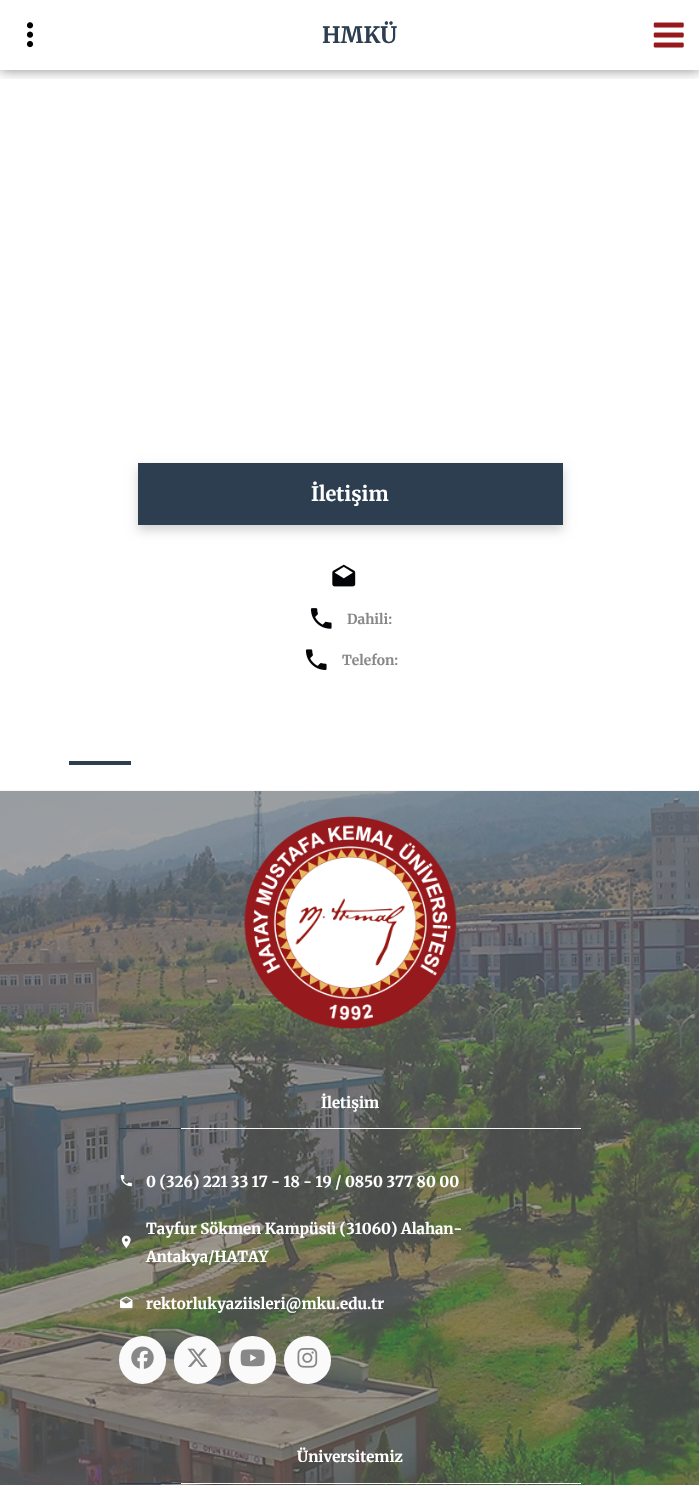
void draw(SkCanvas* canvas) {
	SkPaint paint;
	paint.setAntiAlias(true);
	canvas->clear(0xffffffff);
	canvas->save();
	canvas->clipRect(SkRect::MakeXYWH(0, 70, 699, 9));
	paint.setColor(0x59434345);
	paint.setMaskFilter(SkMaskFilter::MakeBlur(kNormal_SkBlurStyle, 6));
	canvas->drawRect(SkRect::MakeXYWH(0, 0, 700, 70), paint);
	paint.setMaskFilter(nullptr);
	paint.setMaskFilter(SkMaskFilter::MakeBlur(kNormal_SkBlurStyle, 6));
	canvas->drawRect(SkRect::MakeXYWH(0, 0, 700, 70), paint);
	paint.setMaskFilter(nullptr);
	canvas->restore();
	canvas->drawImageRect(SkImages::DeferredFromEncodedData(SkData::MakeFromFileName("img1.png")), SkRect::MakeXYWH(26, 22, 8, 26), SkSamplingOptions());
	SkFont f1(fontMgr->matchFamilyStyle("Merriweather", SkFontStyle::Bold()), 22.5);
	f1.setSubpixel(true);
	paint.setColor(0xff2c3e50);
	canvas->drawString("HMKÜ", 322, 43, f1, paint);
	canvas->drawImageRect(SkImages::DeferredFromEncodedData(SkData::MakeFromFileName("img2.png")), SkRect::MakeXYWH(653, 22, 31, 26), SkSamplingOptions());
	paint.setColor(0x2e000000);
	paint.setMaskFilter(SkMaskFilter::MakeBlur(kNormal_SkBlurStyle, 5));
	canvas->drawRect(SkRect::MakeXYWH(138, 468, 425, 62), paint);
	paint.setMaskFilter(nullptr);
	paint.setColor(0xff2c3e50);
	canvas->drawRect(SkRect::MakeXYWH(138, 463, 425, 62), paint);
	SkFont f2(fontMgr->matchFamilyStyle("Merriweather", SkFontStyle::Bold()), 20);
	f2.setSubpixel(true);
	paint.setColor(0xffffffff);
	canvas->drawString("İletişim", 311, 501, f2, paint);
	canvas->drawImageRect(SkImages::DeferredFromEncodedData(SkData::MakeFromFileName("img3.png")), SkRect::MakeXYWH(332, 564, 24, 23), SkSamplingOptions());
	canvas->drawImageRect(SkImages::DeferredFromEncodedData(SkData::MakeFromFileName("img4.png")), SkRect::MakeXYWH(310, 608, 22, 21), SkSamplingOptions());
	SkFont f3(fontMgr->matchFamilyStyle("Merriweather", SkFontStyle::Bold()), 13.75);
	f3.setSubpixel(true);
	paint.setColor(0xff888888);
	canvas->drawString("Dahili:", 347, 624, f3, paint);
	canvas->drawImageRect(SkImages::DeferredFromEncodedData(SkData::MakeFromFileName("img5.png")), SkRect::MakeXYWH(305, 649, 22, 21), SkSamplingOptions());
	canvas->drawString("Telefon:", 342, 665, f3, paint);
	paint.setColor(0xff2c3e50);
	canvas->drawRect(SkRect::MakeXYWH(69, 761, 62, 4), paint);
	canvas->drawImageRect(SkImages::DeferredFromEncodedData(SkData::MakeFromFileName("img6.png")), SkRect::MakeXYWH(0, 791, 699, 694), SkSamplingOptions());
	paint.setColor(0xfff6f7f8);
	canvas->drawRect(SkRect::MakeXYWH(0, 790, 699, 1), paint);
	canvas->drawImageRect(SkImages::DeferredFromEncodedData(SkData::MakeFromFileName("img7.png")), SkRect::MakeXYWH(244, 816, 213, 213), SkSamplingOptions());
	SkFont f4(fontMgr->matchFamilyStyle("Merriweather", SkFontStyle::Bold()), 15);
	f4.setSubpixel(true);
	paint.setColor(0xffffffff);
	canvas->drawString("İletişim", 321, 1108, f4, paint);
	paint.setColor(0xfffafafa);
	canvas->drawRect(SkRect::MakeXYWH(181, 1128, 400, 1), paint);
	paint.setColor(0xff2c3e50);
	canvas->drawRect(SkRect::MakeXYWH(119, 1128, 62, 1), paint);
	canvas->drawImageRect(SkImages::DeferredFromEncodedData(SkData::MakeFromFileName("img8.png")), SkRect::MakeXYWH(120, 1175, 12, 12), SkSamplingOptions());
	paint.setColor(0xffffffff);
	canvas->drawString("0 (326) 221 33 17 - 18 - 19 / 0850 377 80 00", 146, 1187, f4, paint);
	canvas->drawImageRect(SkImages::DeferredFromEncodedData(SkData::MakeFromFileName("img9.png")), SkRect::MakeXYWH(121, 1235, 10, 13), SkSamplingOptions());
	canvas->drawString("Tayfur Sökmen Kampüsü (31060) Alahan-", 146, 1234, f4, paint);
	canvas->drawString("Antakya/HATAY", 146, 1262, f4, paint);
	canvas->drawImageRect(SkImages::DeferredFromEncodedData(SkData::MakeFromFileName("img10.png")), SkRect::MakeXYWH(120, 1296, 13, 13), SkSamplingOptions());
	canvas->drawString("rektorlukyaziisleri@mku.edu.tr", 146, 1309, f4, paint);
	paint.setColor(0xfffafafa);
	canvas->drawRoundRect(SkRect::MakeXYWH(119, 1336, 47, 48), 23.5, 23.5, paint);
	canvas->drawImageRect(SkImages::DeferredFromEncodedData(SkData::MakeFromFileName("img11.png")), SkRect::MakeXYWH(131, 1346, 23, 23), SkSamplingOptions());
	canvas->drawRoundRect(SkRect::MakeXYWH(174, 1336, 47, 48), 23.5, 23.5, paint);
	canvas->drawImageRect(SkImages::DeferredFromEncodedData(SkData::MakeFromFileName("img12.png")), SkRect::MakeXYWH(187, 1348, 21, 19), SkSamplingOptions());
	canvas->drawRoundRect(SkRect::MakeXYWH(229, 1336, 47, 48), 23.5, 23.5, paint);
	canvas->drawImageRect(SkImages::DeferredFromEncodedData(SkData::MakeFromFileName("img13.png")), SkRect::MakeXYWH(240, 1349, 25, 18), SkSamplingOptions());
	canvas->drawRoundRect(SkRect::MakeXYWH(284, 1336, 47, 48), 23.5, 23.5, paint);
	canvas->drawImageRect(SkImages::DeferredFromEncodedData(SkData::MakeFromFileName("img14.png")), SkRect::MakeXYWH(297, 1348, 21, 20), SkSamplingOptions());
	paint.setColor(0xffffffff);
	canvas->drawString("Üniversitemiz", 297, 1462, f4, paint);
	paint.setColor(0xfffafafa);
	canvas->drawRect(SkRect::MakeXYWH(181, 1483, 400, 1), paint);
	paint.setColor(0xff2c3e50);
	canvas->drawRect(SkRect::MakeXYWH(119, 1483, 62, 1), paint);
}
